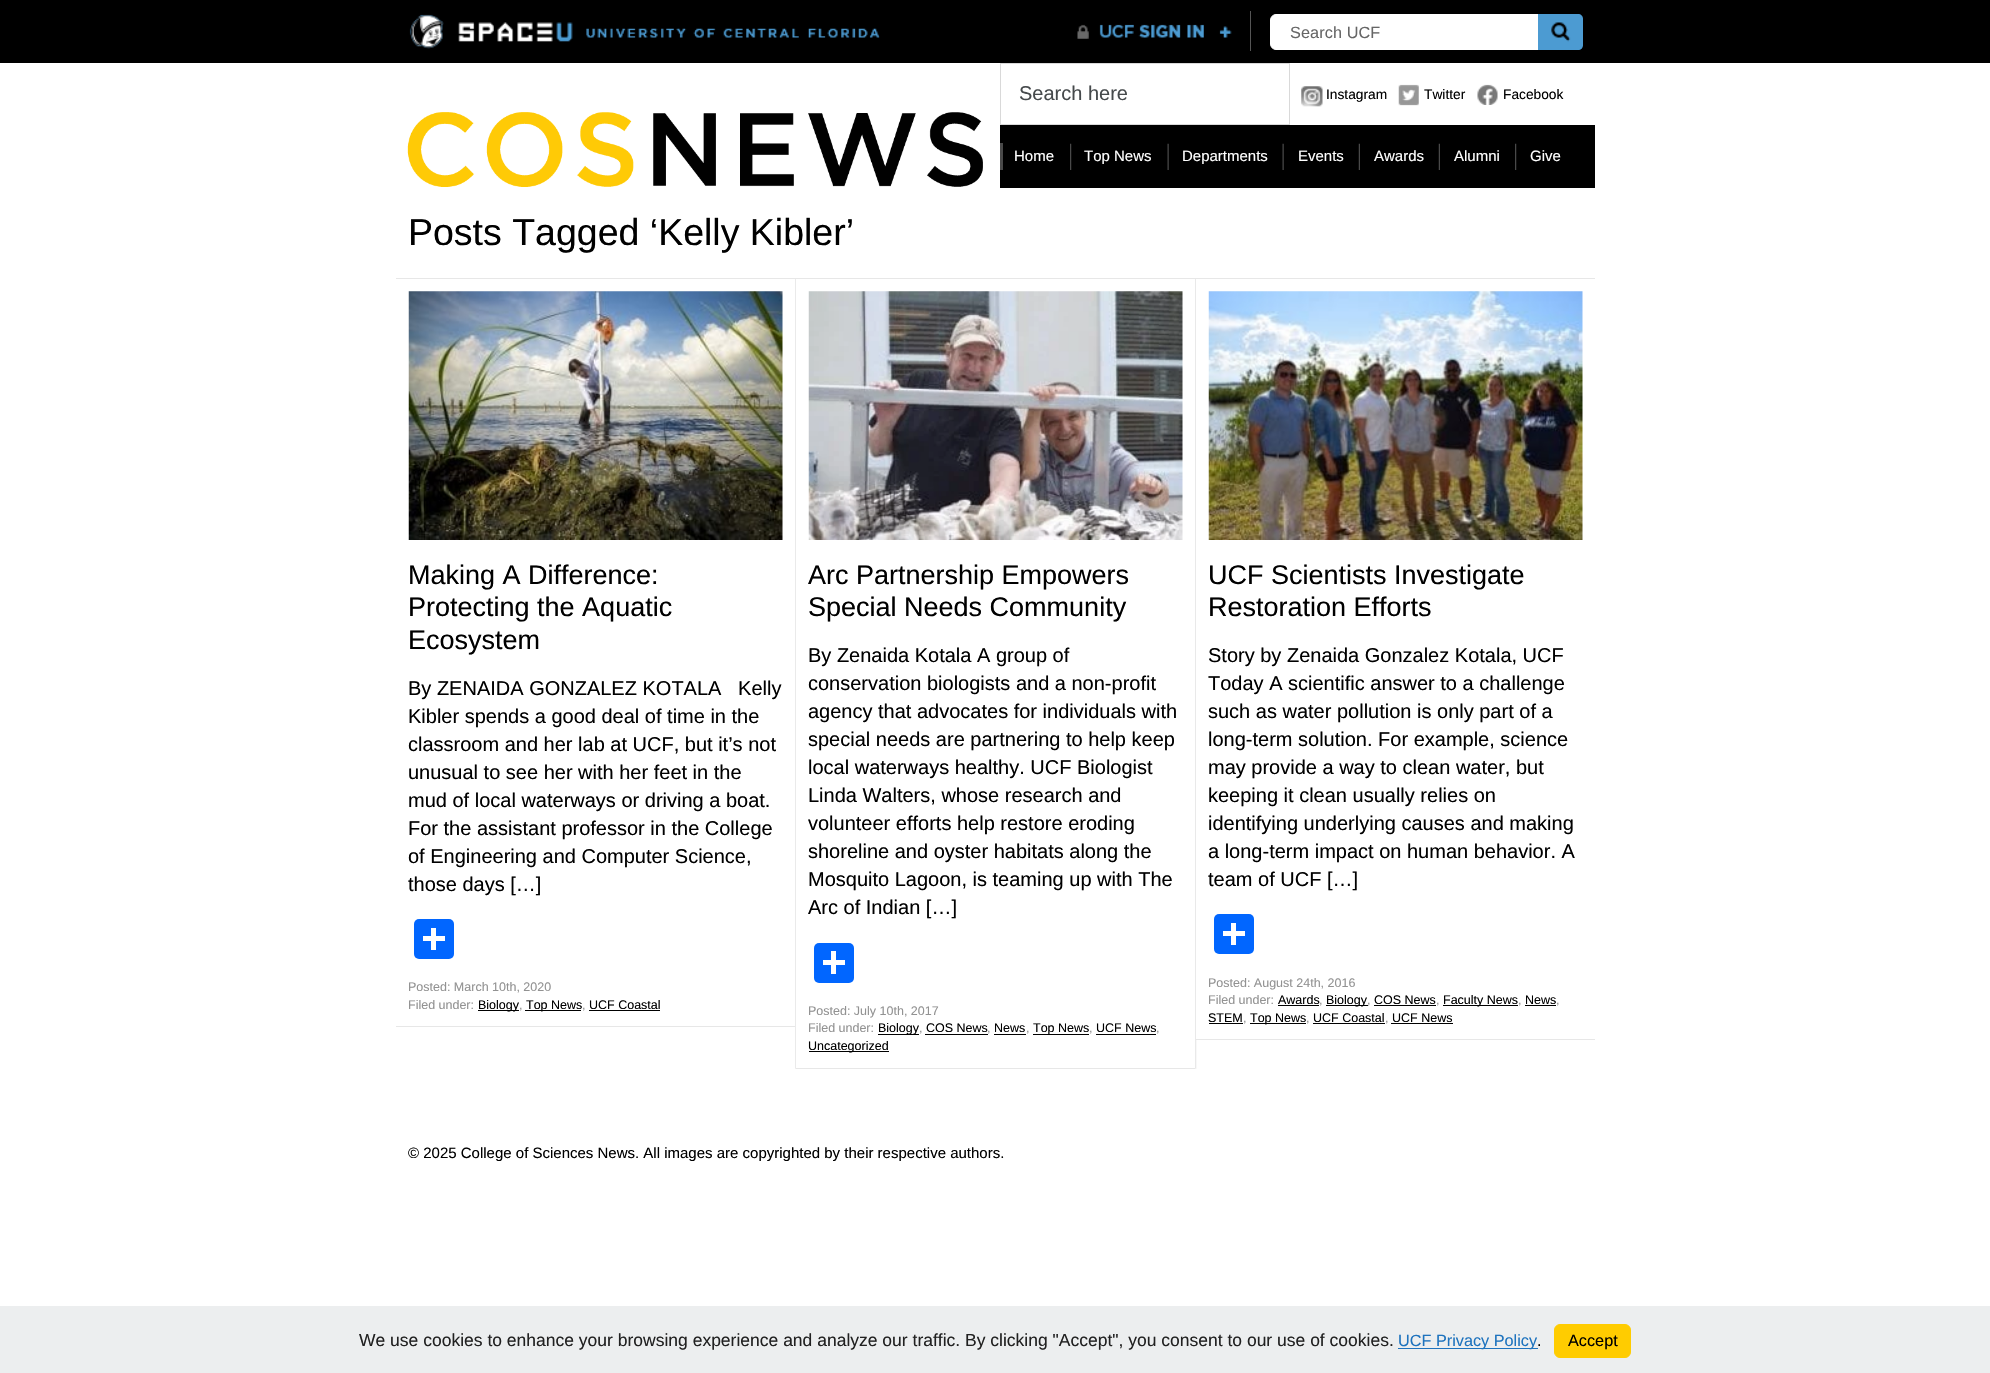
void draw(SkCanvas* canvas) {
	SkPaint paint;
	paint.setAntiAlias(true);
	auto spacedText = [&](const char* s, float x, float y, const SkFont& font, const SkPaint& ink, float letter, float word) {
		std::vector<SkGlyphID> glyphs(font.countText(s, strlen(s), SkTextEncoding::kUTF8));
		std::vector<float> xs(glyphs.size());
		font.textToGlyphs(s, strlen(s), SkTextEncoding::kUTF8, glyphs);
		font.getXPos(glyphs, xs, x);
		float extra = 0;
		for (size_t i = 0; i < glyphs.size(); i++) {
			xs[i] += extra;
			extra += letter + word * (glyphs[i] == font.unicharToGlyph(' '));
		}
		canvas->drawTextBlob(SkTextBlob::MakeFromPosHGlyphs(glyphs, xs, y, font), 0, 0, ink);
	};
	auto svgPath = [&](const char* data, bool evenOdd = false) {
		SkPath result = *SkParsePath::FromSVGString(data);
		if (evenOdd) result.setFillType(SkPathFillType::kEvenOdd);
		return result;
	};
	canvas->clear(0xffffffff);
	paint.setColor(0xff000000);
	canvas->drawRect(SkRect::MakeXYWH(0, 0, 1990, 63), paint);
	canvas->drawImageRect(SkImages::DeferredFromEncodedData(SkData::MakeFromFileName("img1.png")), SkRect::MakeXYWH(409, 14, 471, 35), SkSamplingOptions());
	canvas->drawImageRect(SkImages::DeferredFromEncodedData(SkData::MakeFromFileName("img2.png")), SkRect::MakeXYWH(1077, 24, 155, 15), SkSamplingOptions());
	paint.setColor(0xff555555);
	canvas->drawRect(SkRect::MakeXYWH(1250, 11, 1, 40), paint);
	paint.setColor(0xffffffff);
	canvas->drawPath(svgPath("M1276 14.5H1550.5V49.5H1276C1273 49.5 1270.5 47 1270.5 44V20C1270.5 17 1273 14.5 1276 14.5Z"), paint);
	paint.setStroke(true);
	paint.setStrokeWidth(1);
	canvas->drawPath(svgPath("M1276 14.5H1550.5V49.5H1276C1273 49.5 1270.5 47 1270.5 44V20C1270.5 17 1273 14.5 1276 14.5Z"), paint);
	SkFont f1(fontMgr->matchFamilyStyle("Liberation Sans", SkFontStyle::Normal()), 16.25);
	f1.setSubpixel(true);
	paint.setStroke(false);
	paint.setColor(0xff666666);
	spacedText("Search UCF", 1290, 38, f1, paint, 0.1, 0);
	paint.setColor(0xff4c9bd2);
	canvas->drawPath(svgPath("M1538 14H1578C1581 14 1583 16 1583 19V45C1583 48 1581 50 1578 50H1538Z"), paint);
	canvas->drawImageRect(SkImages::DeferredFromEncodedData(SkData::MakeFromFileName("img3.png")), SkRect::MakeXYWH(1551, 22, 20, 20), SkSamplingOptions());
	canvas->drawImageRect(SkImages::DeferredFromEncodedData(SkData::MakeFromFileName("img4.png")), SkRect::MakeXYWH(407, 112, 576, 75), SkSamplingOptions());
	paint.setStroke(true);
	paint.setColor(0xffd9d9d9);
	canvas->drawRect(SkRect::MakeXYWH(1000.5, 63.5, 289, 61), paint);
	SkFont f2(fontMgr->matchFamilyStyle("Liberation Sans", SkFontStyle::Normal()), 20);
	f2.setSubpixel(true);
	paint.setStroke(false);
	paint.setColor(0xff464a4c);
	canvas->drawString("Search here", 1019, 100, f2, paint);
	canvas->drawImageRect(SkImages::DeferredFromEncodedData(SkData::MakeFromFileName("img5.png")), SkRect::MakeXYWH(1301, 86, 22, 21), SkSamplingOptions());
	SkFont f3(fontMgr->matchFamilyStyle("Liberation Sans", SkFontStyle::Normal()), 13.75);
	f3.setSubpixel(true);
	paint.setColor(0xff000000);
	canvas->drawString("Instagram", 1326, 99, f3, paint);
	canvas->drawImageRect(SkImages::DeferredFromEncodedData(SkData::MakeFromFileName("img6.png")), SkRect::MakeXYWH(1398, 84, 21, 22), SkSamplingOptions());
	canvas->drawString("Twitter", 1424, 99, f3, paint);
	canvas->drawImageRect(SkImages::DeferredFromEncodedData(SkData::MakeFromFileName("img7.png")), SkRect::MakeXYWH(1477, 84, 21, 21), SkSamplingOptions());
	canvas->drawString("Facebook", 1503, 99, f3, paint);
	canvas->drawRect(SkRect::MakeXYWH(1000, 125, 595, 63), paint);
	paint.setColor(0xff494949);
	canvas->drawRect(SkRect::MakeXYWH(1000, 143, 3, 27), paint);
	SkFont f4(fontMgr->matchFamilyStyle("Liberation Sans", SkFontStyle::Normal()), 15);
	f4.setSubpixel(true);
	paint.setColor(0xffffffff);
	canvas->drawString("Home", 1014, 161, f4, paint);
	canvas->drawImageRect(SkImages::DeferredFromEncodedData(SkData::MakeFromFileName("img8.png")), SkRect::MakeXYWH(1070, 143, 2, 27), SkSamplingOptions());
	canvas->drawString("Top News", 1084, 161, f4, paint);
	canvas->drawImageRect(SkImages::DeferredFromEncodedData(SkData::MakeFromFileName("img9.png")), SkRect::MakeXYWH(1167, 143, 2, 27), SkSamplingOptions());
	canvas->drawString("Departments", 1182, 161, f4, paint);
	canvas->drawImageRect(SkImages::DeferredFromEncodedData(SkData::MakeFromFileName("img9.png")), SkRect::MakeXYWH(1282, 143, 2, 27), SkSamplingOptions());
	canvas->drawString("Events", 1298, 161, f4, paint);
	canvas->drawImageRect(SkImages::DeferredFromEncodedData(SkData::MakeFromFileName("img10.png")), SkRect::MakeXYWH(1358, 143, 2, 27), SkSamplingOptions());
	canvas->drawString("Awards", 1374, 161, f4, paint);
	canvas->drawImageRect(SkImages::DeferredFromEncodedData(SkData::MakeFromFileName("img10.png")), SkRect::MakeXYWH(1438, 143, 2, 27), SkSamplingOptions());
	canvas->drawString("Alumni", 1454, 161, f4, paint);
	canvas->drawImageRect(SkImages::DeferredFromEncodedData(SkData::MakeFromFileName("img8.png")), SkRect::MakeXYWH(1515, 143, 2, 27), SkSamplingOptions());
	canvas->drawString("Give", 1530, 161, f4, paint);
	paint.setColor(0xffe7e7e7);
	canvas->drawRect(SkRect::MakeXYWH(396, 278, 1199, 1), paint);
	SkFont f5(fontMgr->matchFamilyStyle("Liberation Sans", SkFontStyle::Normal()), 37.5);
	f5.setSubpixel(true);
	paint.setColor(0xff000000);
	canvas->drawString("Posts Tagged ‘Kelly Kibler’", 408, 245, f5, paint);
	canvas->drawImageRect(SkImages::DeferredFromEncodedData(SkData::MakeFromFileName("img11.png")), SkRect::MakeXYWH(795, 279, 402, 790), SkSamplingOptions());
	paint.setColor(0xffe7e7e7);
	canvas->drawRect(SkRect::MakeXYWH(396, 1026, 399, 1), paint);
	canvas->drawImageRect(SkImages::DeferredFromEncodedData(SkData::MakeFromFileName("img12.png")), SkRect::MakeXYWH(408, 291, 375, 249), SkSamplingOptions());
	SkFont f6(fontMgr->matchFamilyStyle("Liberation Sans", SkFontStyle::Normal()), 27);
	f6.setSubpixel(true);
	paint.setColor(0xff000000);
	canvas->drawString("Making A Difference:", 408, 584, f6, paint);
	canvas->drawString("Protecting the Aquatic", 408, 616, f6, paint);
	canvas->drawString("Ecosystem", 408, 649, f6, paint);
	canvas->drawString("By ZENAIDA GONZALEZ KOTALA   Kelly", 408, 695, f2, paint);
	canvas->drawString("Kibler spends a good deal of time in the", 408, 723, f2, paint);
	canvas->drawString("classroom and her lab at UCF, but it’s not", 408, 751, f2, paint);
	canvas->drawString("unusual to see her with her feet in the", 408, 779, f2, paint);
	canvas->drawString("mud of local waterways or driving a boat.", 408, 807, f2, paint);
	canvas->drawString("For the assistant professor in the College", 408, 835, f2, paint);
	canvas->drawString("of Engineering and Computer Science,", 408, 863, f2, paint);
	canvas->drawString("those days […]", 408, 891, f2, paint);
	paint.setColor(0xff0166ff);
	canvas->drawRoundRect(SkRect::MakeXYWH(414, 919, 40, 40), 5, 5, paint);
	paint.setColor(0xffffffff);
	canvas->drawRect(SkRect::MakeXYWH(431, 928, 5, 22), paint);
	canvas->drawRect(SkRect::MakeXYWH(423, 936, 22, 5), paint);
	SkFont f7(fontMgr->matchFamilyStyle("Liberation Sans", SkFontStyle::Normal()), 12.5);
	f7.setSubpixel(true);
	paint.setColor(0xff929292);
	canvas->drawString("Posted: March 10th, 2020", 408, 991, f7, paint);
	canvas->drawString("Filed under:", 408, 1009, f7, paint);
	paint.setColor(0xff000000);
	canvas->drawRect(SkRect::MakeXYWH(478, 1010, 41, 1), paint);
	canvas->drawString("Biology", 478, 1009, f7, paint);
	paint.setColor(0xff929292);
	canvas->drawString(",", 519, 1009, f7, paint);
	paint.setColor(0xff000000);
	canvas->drawRect(SkRect::MakeXYWH(525, 1010, 56, 1), paint);
	canvas->drawString("Top News", 526, 1009, f7, paint);
	paint.setColor(0xff929292);
	canvas->drawString(",", 582, 1009, f7, paint);
	paint.setColor(0xff000000);
	canvas->drawString("UCF Coastal", 589, 1009, f7, paint);
	canvas->drawRect(SkRect::MakeXYWH(589, 1010, 71, 1), paint);
	paint.setColor(0xffffffff);
	canvas->drawRect(SkRect::MakeXYWH(796, 279, 399, 789), paint);
	paint.setColor(0xffe7e7e7);
	canvas->drawRect(SkRect::MakeXYWH(796, 1068, 399, 1), paint);
	canvas->drawImageRect(SkImages::DeferredFromEncodedData(SkData::MakeFromFileName("img13.png")), SkRect::MakeXYWH(808, 291, 375, 249), SkSamplingOptions());
	paint.setColor(0xff000000);
	canvas->drawString("Arc Partnership Empowers", 808, 584, f6, paint);
	canvas->drawString("Special Needs Community", 808, 616, f6, paint);
	canvas->drawString("By Zenaida Kotala A group of", 808, 662, f2, paint);
	canvas->drawString("conservation biologists and a non-profit", 808, 690, f2, paint);
	canvas->drawString("agency that advocates for individuals with", 808, 718, f2, paint);
	canvas->drawString("special needs are partnering to help keep", 808, 746, f2, paint);
	canvas->drawString("local waterways healthy. UCF Biologist", 808, 774, f2, paint);
	canvas->drawString("Linda Walters, whose research and", 808, 802, f2, paint);
	canvas->drawString("volunteer efforts help restore eroding", 808, 830, f2, paint);
	canvas->drawString("shoreline and oyster habitats along the", 808, 858, f2, paint);
	canvas->drawString("Mosquito Lagoon, is teaming up with The", 808, 886, f2, paint);
	canvas->drawString("Arc of Indian […]", 808, 914, f2, paint);
	paint.setColor(0xff0166ff);
	canvas->drawRoundRect(SkRect::MakeXYWH(814, 943, 40, 40), 5, 5, paint);
	paint.setColor(0xffffffff);
	canvas->drawRect(SkRect::MakeXYWH(831, 951, 5, 23), paint);
	canvas->drawRect(SkRect::MakeXYWH(823, 960, 22, 5), paint);
	paint.setColor(0xff929292);
	canvas->drawString("Posted: July 10th, 2017", 808, 1015, f7, paint);
	canvas->drawString("Filed under:", 808, 1032, f7, paint);
	paint.setColor(0xff000000);
	canvas->drawRect(SkRect::MakeXYWH(878, 1034, 41, 1), paint);
	canvas->drawString("Biology", 878, 1032, f7, paint);
	paint.setColor(0xff929292);
	canvas->drawString(",", 919, 1032, f7, paint);
	paint.setColor(0xff000000);
	canvas->drawString("COS News", 926, 1032, f7, paint);
	canvas->drawRect(SkRect::MakeXYWH(925, 1034, 63, 1), paint);
	paint.setColor(0xff929292);
	canvas->drawString(",", 987, 1032, f7, paint);
	paint.setColor(0xff000000);
	canvas->drawString("News", 994, 1032, f7, paint);
	canvas->drawRect(SkRect::MakeXYWH(994, 1034, 32, 1), paint);
	paint.setColor(0xff929292);
	canvas->drawString(",", 1026, 1032, f7, paint);
	paint.setColor(0xff000000);
	canvas->drawRect(SkRect::MakeXYWH(1033, 1034, 56, 1), paint);
	canvas->drawString("Top News", 1033, 1032, f7, paint);
	paint.setColor(0xff929292);
	canvas->drawString(",", 1089, 1032, f7, paint);
	paint.setColor(0xff000000);
	canvas->drawString("UCF News", 1096, 1032, f7, paint);
	canvas->drawRect(SkRect::MakeXYWH(1096, 1034, 60, 1), paint);
	paint.setColor(0xff929292);
	canvas->drawString(",", 1156, 1032, f7, paint);
	paint.setColor(0xff000000);
	canvas->drawRect(SkRect::MakeXYWH(809, 1051, 80, 1), paint);
	canvas->drawString("Uncategorized", 808, 1050, f7, paint);
	paint.setColor(0xffffffff);
	canvas->drawRect(SkRect::MakeXYWH(1196, 279, 1, 760), paint);
	paint.setColor(0xffe7e7e7);
	canvas->drawRect(SkRect::MakeXYWH(1196, 1039, 399, 1), paint);
	canvas->drawImageRect(SkImages::DeferredFromEncodedData(SkData::MakeFromFileName("img14.png")), SkRect::MakeXYWH(1208, 291, 375, 249), SkSamplingOptions());
	paint.setColor(0xff000000);
	canvas->drawString("UCF Scientists Investigate", 1208, 584, f6, paint);
	canvas->drawString("Restoration Efforts", 1208, 616, f6, paint);
	canvas->drawString("Story by Zenaida Gonzalez Kotala, UCF", 1208, 662, f2, paint);
	canvas->drawString("Today A scientific answer to a challenge", 1208, 690, f2, paint);
	canvas->drawString("such as water pollution is only part of a", 1208, 718, f2, paint);
	canvas->drawString("long-term solution. For example, science", 1208, 746, f2, paint);
	canvas->drawString("may provide a way to clean water, but", 1208, 774, f2, paint);
	canvas->drawString("keeping it clean usually relies on", 1208, 802, f2, paint);
	canvas->drawString("identifying underlying causes and making", 1208, 830, f2, paint);
	canvas->drawString("a long-term impact on human behavior. A", 1208, 858, f2, paint);
	canvas->drawString("team of UCF […]", 1208, 886, f2, paint);
	paint.setColor(0xff0166ff);
	canvas->drawRoundRect(SkRect::MakeXYWH(1214, 914, 40, 40), 5, 5, paint);
	paint.setColor(0xffffffff);
	canvas->drawRect(SkRect::MakeXYWH(1231, 923, 5, 22), paint);
	canvas->drawRect(SkRect::MakeXYWH(1223, 931, 22, 5), paint);
	paint.setColor(0xff929292);
	canvas->drawString("Posted: August 24th, 2016", 1208, 987, f7, paint);
	canvas->drawString("Filed under:", 1208, 1004, f7, paint);
	paint.setColor(0xff000000);
	canvas->drawString("Awards", 1278, 1004, f7, paint);
	canvas->drawRect(SkRect::MakeXYWH(1278, 1005, 41, 1), paint);
	paint.setColor(0xff929292);
	canvas->drawString(",", 1319, 1004, f7, paint);
	paint.setColor(0xff000000);
	canvas->drawRect(SkRect::MakeXYWH(1326, 1005, 42, 1), paint);
	canvas->drawString("Biology", 1326, 1004, f7, paint);
	paint.setColor(0xff929292);
	canvas->drawString(",", 1367, 1004, f7, paint);
	paint.setColor(0xff000000);
	canvas->drawString("COS News", 1374, 1004, f7, paint);
	canvas->drawRect(SkRect::MakeXYWH(1374, 1005, 62, 1), paint);
	paint.setColor(0xff929292);
	canvas->drawString(",", 1436, 1004, f7, paint);
	paint.setColor(0xff000000);
	canvas->drawRect(SkRect::MakeXYWH(1443, 1005, 75, 1), paint);
	canvas->drawString("Faculty News", 1443, 1004, f7, paint);
	paint.setColor(0xff929292);
	canvas->drawString(",", 1518, 1004, f7, paint);
	paint.setColor(0xff000000);
	canvas->drawString("News", 1525, 1004, f7, paint);
	canvas->drawRect(SkRect::MakeXYWH(1525, 1005, 31, 1), paint);
	paint.setColor(0xff929292);
	canvas->drawString(",", 1556, 1004, f7, paint);
	paint.setColor(0xff000000);
	canvas->drawString("STEM", 1208, 1022, f7, paint);
	canvas->drawRect(SkRect::MakeXYWH(1209, 1023, 34, 1), paint);
	paint.setColor(0xff929292);
	canvas->drawString(",", 1243, 1022, f7, paint);
	paint.setColor(0xff000000);
	canvas->drawRect(SkRect::MakeXYWH(1250, 1023, 56, 1), paint);
	canvas->drawString("Top News", 1250, 1022, f7, paint);
	paint.setColor(0xff929292);
	canvas->drawString(",", 1306, 1022, f7, paint);
	paint.setColor(0xff000000);
	canvas->drawString("UCF Coastal", 1313, 1022, f7, paint);
	canvas->drawRect(SkRect::MakeXYWH(1313, 1023, 72, 1), paint);
	paint.setColor(0xff929292);
	canvas->drawString(",", 1385, 1022, f7, paint);
	paint.setColor(0xff000000);
	canvas->drawString("UCF News", 1392, 1022, f7, paint);
	canvas->drawRect(SkRect::MakeXYWH(1391, 1023, 62, 1), paint);
	canvas->drawString("© 2025 College of Sciences News. All images are copyrighted by their respective authors.", 408, 1158, f4, paint);
	paint.setColor(0xffeceeef);
	canvas->drawRect(SkRect::MakeXYWH(0, 1306, 1990, 67), paint);
	SkFont f8(fontMgr->matchFamilyStyle("Liberation Sans", SkFontStyle::Normal()), 17.5);
	f8.setSubpixel(true);
	paint.setColor(0xff212121);
	canvas->drawString("We use cookies to enhance your browsing experience and analyze our traffic. By clicking \"Accept\", you consent to our use of cookies.", 359, 1346, f8, paint);
	paint.setColor(0xff1e73be);
	canvas->drawRect(SkRect::MakeXYWH(1398, 1348, 140, 1), paint);
	canvas->drawString("UCF Privacy Policy", 1398, 1346, f1, paint);
	paint.setColor(0xff000000);
	canvas->drawString(".", 1537, 1346, f1, paint);
	paint.setColor(0xffffcc00);
	canvas->drawRoundRect(SkRect::MakeXYWH(1554.5, 1324.5, 76, 33), 5.5, 5.5, paint);
	paint.setStroke(true);
	canvas->drawRoundRect(SkRect::MakeXYWH(1554.5, 1324.5, 76, 33), 5.5, 5.5, paint);
	paint.setStroke(false);
	paint.setColor(0xff000000);
	canvas->drawString("Accept", 1568, 1346, f1, paint);
}
